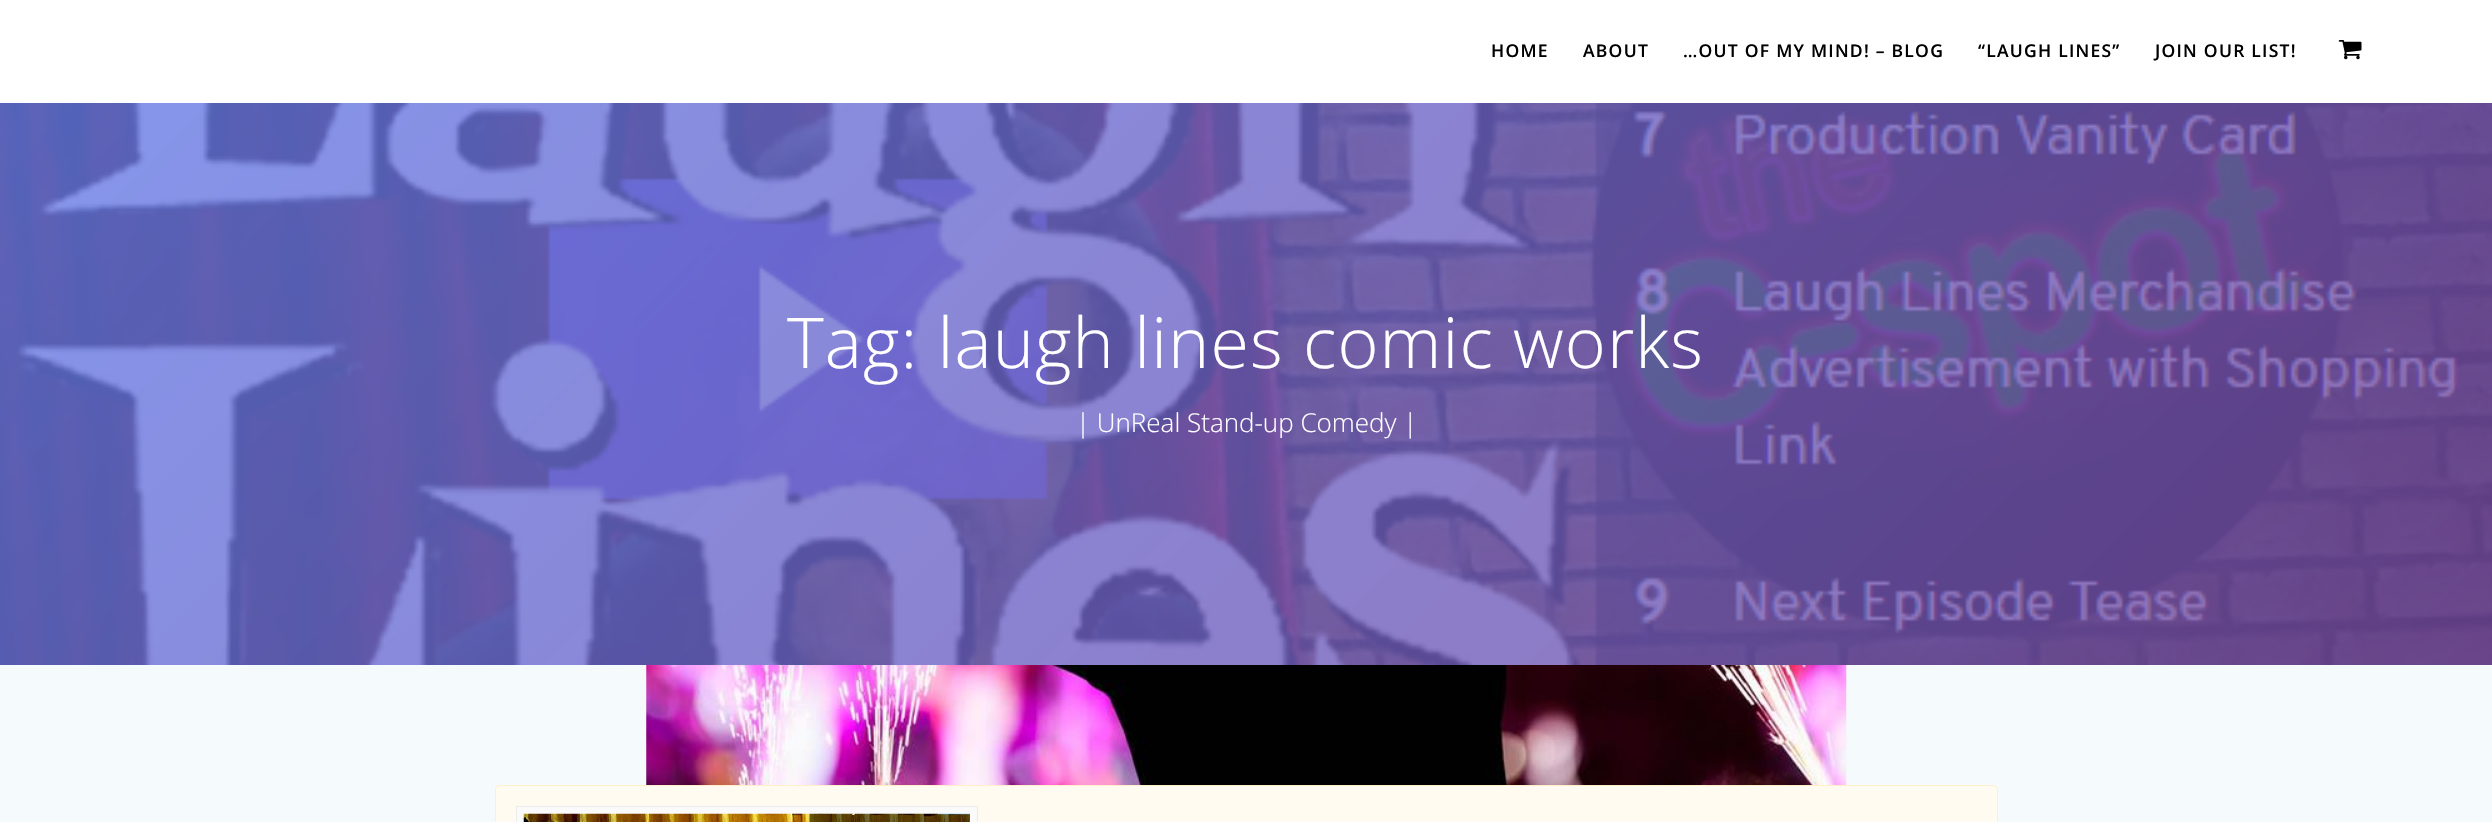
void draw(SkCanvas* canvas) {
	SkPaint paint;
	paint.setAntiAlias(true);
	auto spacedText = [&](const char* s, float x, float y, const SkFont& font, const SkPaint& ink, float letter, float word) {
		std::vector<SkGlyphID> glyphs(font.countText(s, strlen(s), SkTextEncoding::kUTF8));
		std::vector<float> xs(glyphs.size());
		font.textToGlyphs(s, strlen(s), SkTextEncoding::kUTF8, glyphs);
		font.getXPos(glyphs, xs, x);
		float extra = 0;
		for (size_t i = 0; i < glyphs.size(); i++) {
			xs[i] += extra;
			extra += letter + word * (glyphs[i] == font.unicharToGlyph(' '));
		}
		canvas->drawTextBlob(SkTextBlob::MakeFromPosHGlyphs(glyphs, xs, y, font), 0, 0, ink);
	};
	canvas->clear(0xfff5fafd);
	canvas->drawImageRect(SkImages::DeferredFromEncodedData(SkData::MakeFromFileName("img1.png")), SkRect::MakeXYWH(646, 665, 1201, 120), SkSamplingOptions());
	paint.setColor(0xffffffff);
	canvas->drawRect(SkRect::MakeXYWH(0, 0, 2492, 103), paint);
	SkFont f1(fontMgr->matchFamilyStyle("Open Sans", SkFontStyle(600, SkFontStyle::kNormal_Width, SkFontStyle::kUpright_Slant)), 17.5);
	f1.setSubpixel(true);
	paint.setColor(0xff000000);
	spacedText("HOME", 1491, 57, f1, paint, 1.25, 0);
	spacedText("ABOUT", 1583, 57, f1, paint, 1.25, 0);
	spacedText("…OUT OF MY MIND! – BLOG", 1683, 57, f1, paint, 1.25, 0);
	spacedText("“LAUGH LINES”", 1978, 57, f1, paint, 1.25, 0);
	spacedText("JOIN OUR LIST!", 2155, 57, f1, paint, 1.25, 0);
	canvas->drawImageRect(SkImages::DeferredFromEncodedData(SkData::MakeFromFileName("img2.png")), SkRect::MakeXYWH(2338, 40, 24, 20), SkSamplingOptions());
	canvas->drawImageRect(SkImages::DeferredFromEncodedData(SkData::MakeFromFileName("img3.png")), SkRect::MakeXYWH(0, 103, 2492, 562), SkSamplingOptions());
	SkFont f2(fontMgr->matchFamilyStyle("Open Sans", SkFontStyle(300, SkFontStyle::kNormal_Width, SkFontStyle::kUpright_Slant)), 70);
	f2.setSubpixel(true);
	paint.setColor(0xffffffff);
	spacedText("Tag: laugh lines comic works", 787, 368, f2, paint, 1.1, 0);
	SkFont f3(fontMgr->matchFamilyStyle("Open Sans", SkFontStyle(300, SkFontStyle::kNormal_Width, SkFontStyle::kUpright_Slant)), 26);
	f3.setSubpixel(true);
	canvas->drawString("| UnReal Stand-up Comedy |", 1076, 432, f3, paint);
	paint.setColor(0xfffffbf1);
	canvas->drawRoundRect(SkRect::MakeXYWH(495.5, 785.5, 1502, 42), 4.5, 4.5, paint);
	paint.setStroke(true);
	paint.setStrokeWidth(1);
	paint.setColor(0xffffefca);
	canvas->drawRoundRect(SkRect::MakeXYWH(495.5, 785.5, 1502, 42), 4.5, 4.5, paint);
	paint.setStroke(false);
	paint.setColor(0xfffafafa);
	canvas->drawRect(SkRect::MakeXYWH(516.5, 806.5, 461, 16), paint);
	paint.setStroke(true);
	paint.setColor(0xffececec);
	canvas->drawRect(SkRect::MakeXYWH(516.5, 806.5, 461, 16), paint);
	canvas->drawImageRect(SkImages::DeferredFromEncodedData(SkData::MakeFromFileName("img4.png")), SkRect::MakeXYWH(523, 813, 447, 9), SkSamplingOptions());
}
